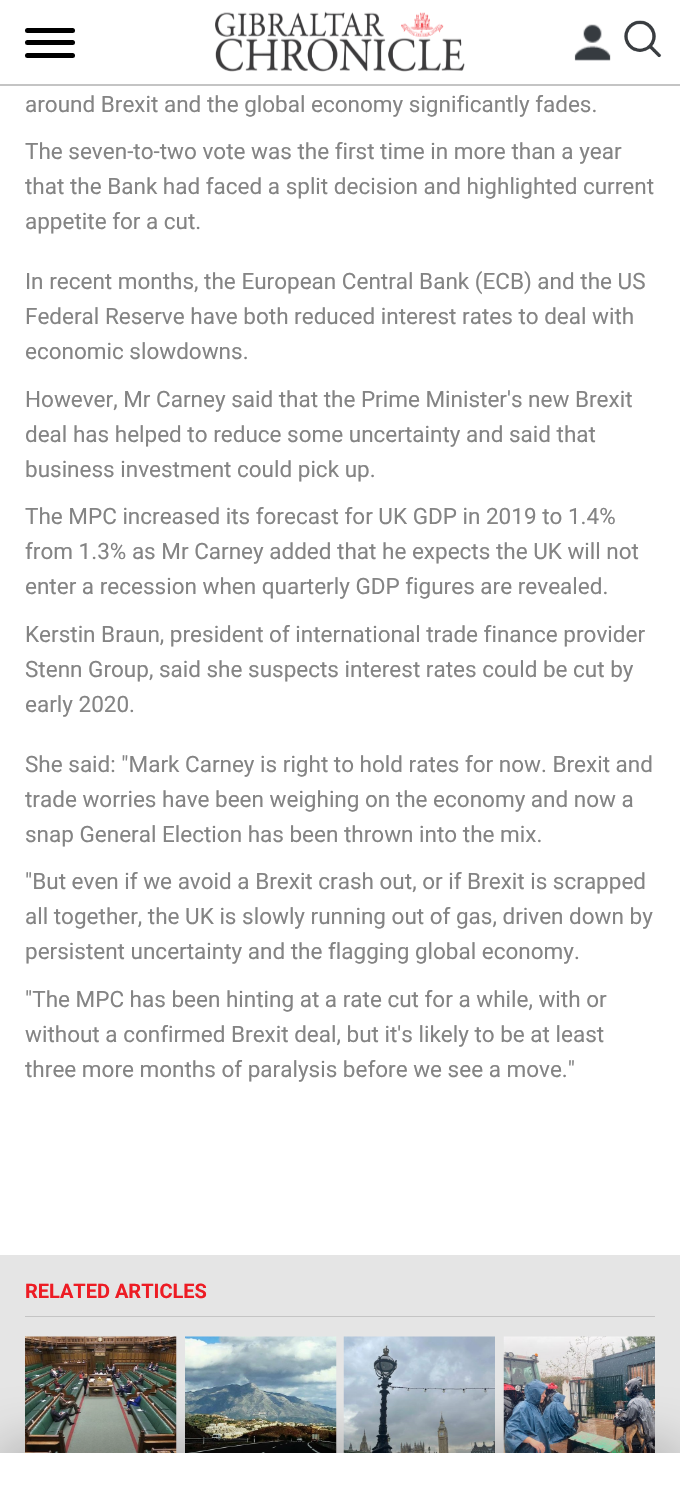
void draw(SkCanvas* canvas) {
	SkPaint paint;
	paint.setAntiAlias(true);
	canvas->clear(0xffffffff);
	paint.setColor(0xffc4c4c4);
	canvas->drawRect(SkRect::MakeXYWH(0, 84, 680, 2), paint);
	paint.setColor(0xff000000);
	canvas->drawRoundRect(SkRect::MakeXYWH(25, 53, 50, 5), 2.5, 2.5, paint);
	canvas->drawRoundRect(SkRect::MakeXYWH(25, 28, 50, 5), 2.5, 2.5, paint);
	canvas->drawRoundRect(SkRect::MakeXYWH(25, 40, 50, 5), 2.5, 2.5, paint);
	canvas->drawImageRect(SkImages::DeferredFromEncodedData(SkData::MakeFromFileName("img1.png")), SkRect::MakeXYWH(215, 11, 250, 61), SkSamplingOptions());
	canvas->drawImageRect(SkImages::DeferredFromEncodedData(SkData::MakeFromFileName("img2.png")), SkRect::MakeXYWH(574, 24, 37, 37), SkSamplingOptions());
	canvas->drawImageRect(SkImages::DeferredFromEncodedData(SkData::MakeFromFileName("img3.png")), SkRect::MakeXYWH(624, 20, 38, 38), SkSamplingOptions());
	SkFont f1(fontMgr->matchFamilyStyle("Roboto", SkFontStyle::Normal()), 22.5);
	f1.setSubpixel(true);
	paint.setColor(0xff848484);
	canvas->drawString("around Brexit and the global economy significantly fades.", 25, 112, f1, paint);
	canvas->drawString("The seven-to-two vote was the first time in more than a year", 25, 159, f1, paint);
	canvas->drawString("that the Bank had faced a split decision and highlighted current", 25, 194, f1, paint);
	canvas->drawString("appetite for a cut.", 25, 229, f1, paint);
	canvas->drawString("In recent months, the European Central Bank (ECB) and the US", 25, 289, f1, paint);
	canvas->drawString("Federal Reserve have both reduced interest rates to deal with", 25, 324, f1, paint);
	canvas->drawString("economic slowdowns.", 25, 359, f1, paint);
	canvas->drawString("However, Mr Carney said that the Prime Minister's new Brexit", 25, 407, f1, paint);
	canvas->drawString("deal has helped to reduce some uncertainty and said that", 25, 442, f1, paint);
	canvas->drawString("business investment could pick up.", 25, 477, f1, paint);
	canvas->drawString("The MPC increased its forecast for UK GDP in 2019 to 1.4%", 25, 524, f1, paint);
	canvas->drawString("from 1.3% as Mr Carney added that he expects the UK will not", 25, 559, f1, paint);
	canvas->drawString("enter a recession when quarterly GDP figures are revealed.", 25, 594, f1, paint);
	canvas->drawString("Kerstin Braun, president of international trade finance provider", 25, 642, f1, paint);
	canvas->drawString("Stenn Group, said she suspects interest rates could be cut by", 25, 677, f1, paint);
	canvas->drawString("early 2020.", 25, 712, f1, paint);
	canvas->drawString("She said: \"Mark Carney is right to hold rates for now. Brexit and", 25, 772, f1, paint);
	canvas->drawString("trade worries have been weighing on the economy and now a", 25, 807, f1, paint);
	canvas->drawString("snap General Election has been thrown into the mix.", 25, 842, f1, paint);
	canvas->drawString("\"But even if we avoid a Brexit crash out, or if Brexit is scrapped", 25, 889, f1, paint);
	canvas->drawString("all together, the UK is slowly running out of gas, driven down by", 25, 924, f1, paint);
	canvas->drawString("persistent uncertainty and the flagging global economy.", 25, 959, f1, paint);
	canvas->drawString("\"The MPC has been hinting at a rate cut for a while, with or", 25, 1007, f1, paint);
	canvas->drawString("without a confirmed Brexit deal, but it's likely to be at least", 25, 1042, f1, paint);
	canvas->drawString("three more months of paralysis before we see a move.\"", 25, 1077, f1, paint);
	paint.setColor(0xffe5e5e5);
	canvas->drawRect(SkRect::MakeXYWH(0, 1255, 680, 198), paint);
	paint.setColor(0xffc4c4c4);
	canvas->drawRect(SkRect::MakeXYWH(25, 1316, 630, 1), paint);
	SkFont f2(fontMgr->matchFamilyStyle("Roboto", SkFontStyle::Bold()), 20);
	f2.setSubpixel(true);
	paint.setColor(0xffed1c24);
	canvas->drawString("RELATED ARTICLES", 25, 1298, f2, paint);
	canvas->drawImageRect(SkImages::DeferredFromEncodedData(SkData::MakeFromFileName("img4.png")), SkRect::MakeXYWH(25, 1336, 152, 117), SkSamplingOptions());
	canvas->drawImageRect(SkImages::DeferredFromEncodedData(SkData::MakeFromFileName("img5.png")), SkRect::MakeXYWH(185, 1336, 152, 117), SkSamplingOptions());
	canvas->drawImageRect(SkImages::DeferredFromEncodedData(SkData::MakeFromFileName("img6.png")), SkRect::MakeXYWH(343, 1336, 152, 117), SkSamplingOptions());
	canvas->drawImageRect(SkImages::DeferredFromEncodedData(SkData::MakeFromFileName("img7.png")), SkRect::MakeXYWH(503, 1336, 152, 117), SkSamplingOptions());
	paint.setColor(0x80000000);
	paint.setMaskFilter(SkMaskFilter::MakeBlur(kNormal_SkBlurStyle, 31));
	canvas->drawRect(SkRect::MakeXYWH(0, 1459, 680, 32), paint);
	paint.setMaskFilter(nullptr);
	paint.setColor(0xffffffff);
	canvas->drawRect(SkRect::MakeXYWH(0, 1453, 680, 32), paint);
}
